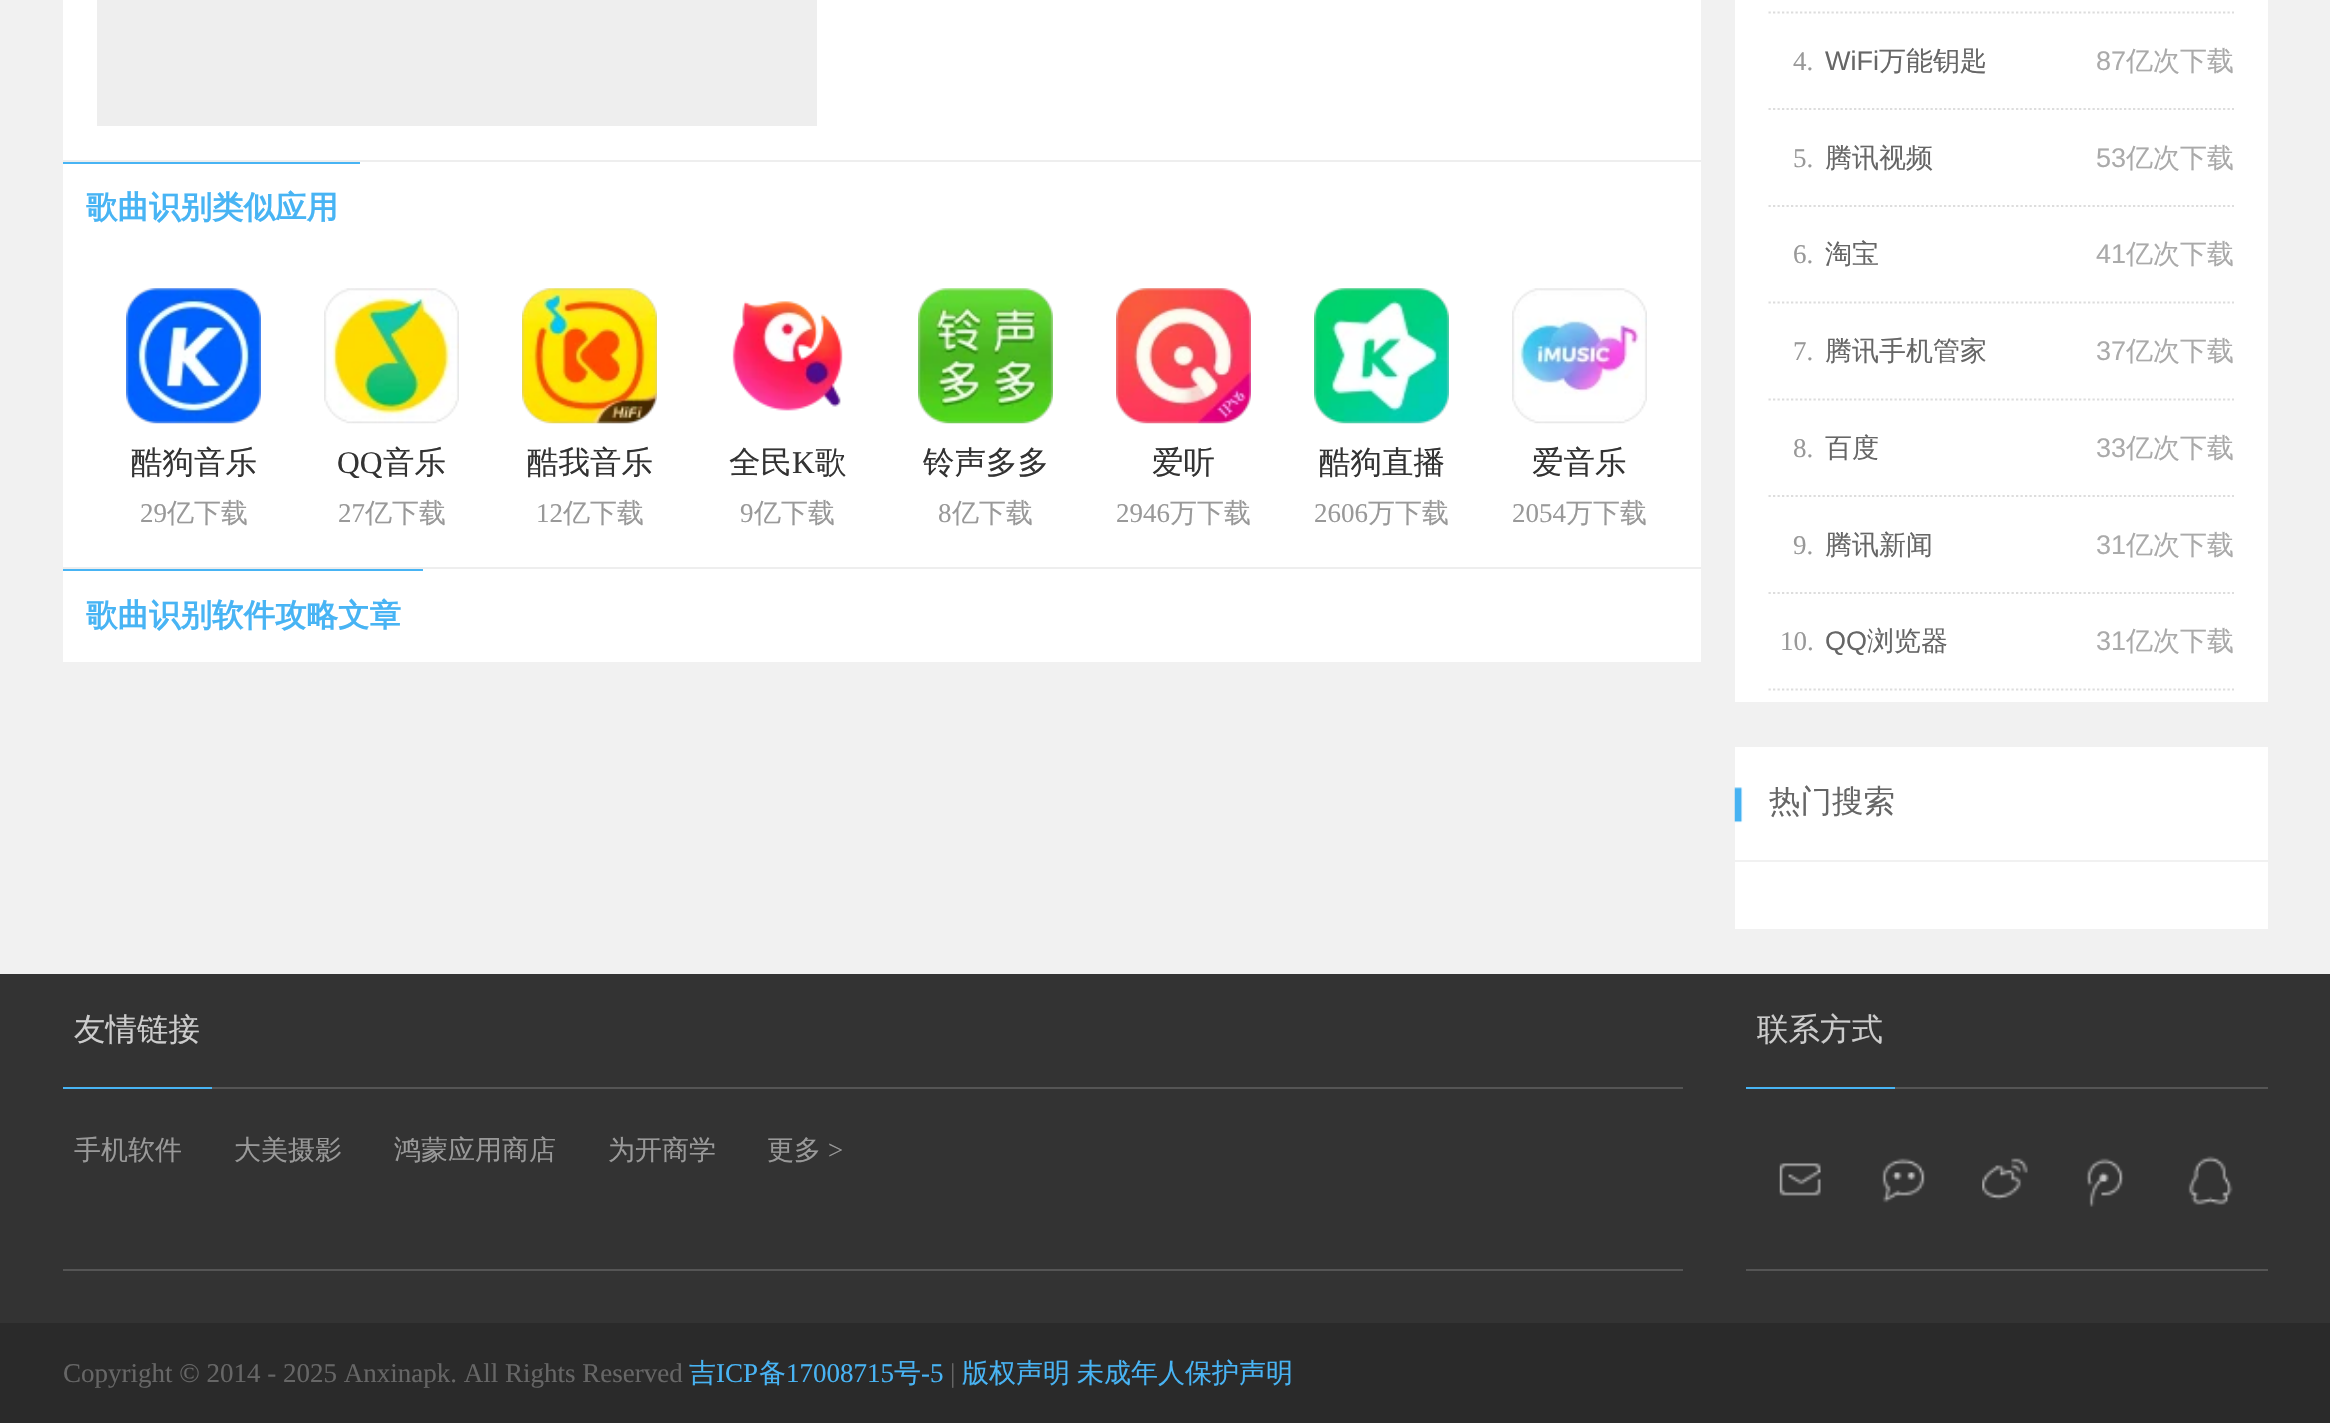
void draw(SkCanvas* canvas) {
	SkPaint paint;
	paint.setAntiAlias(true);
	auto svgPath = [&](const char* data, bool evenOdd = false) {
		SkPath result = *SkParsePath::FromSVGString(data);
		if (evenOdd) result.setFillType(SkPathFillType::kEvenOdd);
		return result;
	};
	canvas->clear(0xfff1f1f1);
	paint.setColor(0xffffffff);
	canvas->drawRect(SkRect::MakeXYWH(63, 0, 1638, 160), paint);
	paint.setColor(0xffeeeeee);
	canvas->drawRect(SkRect::MakeXYWH(97, 0, 720, 126), paint);
	paint.setColor(0xffffffff);
	canvas->drawRect(SkRect::MakeXYWH(63, 162, 1638, 405), paint);
	paint.setColor(0xffeeeeee);
	canvas->drawRect(SkRect::MakeXYWH(63, 160, 1638, 2), paint);
	paint.setColor(0xff48b4f4);
	canvas->drawRect(SkRect::MakeXYWH(63, 162, 297, 2), paint);
	SkFont f1(fontMgr->matchFamilyStyle("WenQuanYi Zen Hei", SkFontStyle::Bold()), 31.5);
	f1.setSubpixel(true);
	canvas->drawString("歌曲识别类似应用", 86, 218, f1, paint);
	canvas->drawImageRect(SkImages::DeferredFromEncodedData(SkData::MakeFromFileName("img1.png")), SkRect::MakeXYWH(126, 288, 135, 136), SkSamplingOptions());
	SkFont f2(fontMgr->matchFamilyStyle("WenQuanYi Zen Hei", SkFontStyle(500, SkFontStyle::kNormal_Width, SkFontStyle::kUpright_Slant)), 31.5);
	f2.setSubpixel(true);
	paint.setColor(0xff333333);
	canvas->drawString("酷狗音乐", 131, 473, f2, paint);
	SkFont f3(fontMgr->matchFamilyStyle("Liberation Serif", SkFontStyle::Normal()), 27);
	f3.setSubpixel(true);
	paint.setColor(0xff999999);
	canvas->drawString("29", 140, 522, f3, paint);
	SkFont f4(fontMgr->matchFamilyStyle("WenQuanYi Zen Hei", SkFontStyle(500, SkFontStyle::kNormal_Width, SkFontStyle::kUpright_Slant)), 27);
	f4.setSubpixel(true);
	canvas->drawString("亿下载", 167, 522, f4, paint);
	canvas->drawImageRect(SkImages::DeferredFromEncodedData(SkData::MakeFromFileName("img2.png")), SkRect::MakeXYWH(324, 288, 135, 136), SkSamplingOptions());
	SkFont f5(fontMgr->matchFamilyStyle("Liberation Serif", SkFontStyle::Normal()), 31.5);
	f5.setSubpixel(true);
	paint.setColor(0xff333333);
	canvas->drawString("QQ", 337, 473, f5, paint);
	canvas->drawString("音乐", 383, 473, f2, paint);
	paint.setColor(0xff999999);
	canvas->drawString("27", 338, 522, f3, paint);
	canvas->drawString("亿下载", 365, 522, f4, paint);
	canvas->drawImageRect(SkImages::DeferredFromEncodedData(SkData::MakeFromFileName("img3.png")), SkRect::MakeXYWH(522, 288, 135, 136), SkSamplingOptions());
	paint.setColor(0xff333333);
	canvas->drawString("酷我音乐", 527, 473, f2, paint);
	paint.setColor(0xff999999);
	canvas->drawString("12", 536, 522, f3, paint);
	canvas->drawString("亿下载", 563, 522, f4, paint);
	canvas->drawImageRect(SkImages::DeferredFromEncodedData(SkData::MakeFromFileName("img4.png")), SkRect::MakeXYWH(732, 301, 111, 110), SkSamplingOptions());
	paint.setColor(0xff333333);
	canvas->drawString("全民", 729, 473, f2, paint);
	canvas->drawString("K", 792, 473, f5, paint);
	canvas->drawString("歌", 815, 473, f2, paint);
	paint.setColor(0xff999999);
	canvas->drawString("9", 740, 522, f3, paint);
	canvas->drawString("亿下载", 754, 522, f4, paint);
	canvas->drawImageRect(SkImages::DeferredFromEncodedData(SkData::MakeFromFileName("img5.png")), SkRect::MakeXYWH(918, 288, 135, 136), SkSamplingOptions());
	paint.setColor(0xff333333);
	canvas->drawString("铃声多多", 923, 473, f2, paint);
	paint.setColor(0xff999999);
	canvas->drawString("8", 938, 522, f3, paint);
	canvas->drawString("亿下载", 952, 522, f4, paint);
	canvas->drawImageRect(SkImages::DeferredFromEncodedData(SkData::MakeFromFileName("img6.png")), SkRect::MakeXYWH(1116, 288, 135, 136), SkSamplingOptions());
	paint.setColor(0xff333333);
	canvas->drawString("爱听", 1152, 473, f2, paint);
	paint.setColor(0xff999999);
	canvas->drawString("2946", 1116, 522, f3, paint);
	canvas->drawString("万下载", 1170, 522, f4, paint);
	canvas->drawImageRect(SkImages::DeferredFromEncodedData(SkData::MakeFromFileName("img7.png")), SkRect::MakeXYWH(1314, 288, 135, 136), SkSamplingOptions());
	paint.setColor(0xff333333);
	canvas->drawString("酷狗直播", 1319, 473, f2, paint);
	paint.setColor(0xff999999);
	canvas->drawString("2606", 1314, 522, f3, paint);
	canvas->drawString("万下载", 1368, 522, f4, paint);
	canvas->drawImageRect(SkImages::DeferredFromEncodedData(SkData::MakeFromFileName("img8.png")), SkRect::MakeXYWH(1512, 288, 135, 136), SkSamplingOptions());
	paint.setColor(0xff333333);
	canvas->drawString("爱音乐", 1532, 473, f2, paint);
	paint.setColor(0xff999999);
	canvas->drawString("2054", 1512, 522, f3, paint);
	canvas->drawString("万下载", 1566, 522, f4, paint);
	paint.setColor(0xffffffff);
	canvas->drawRect(SkRect::MakeXYWH(63, 569, 1638, 93), paint);
	paint.setColor(0xffeeeeee);
	canvas->drawRect(SkRect::MakeXYWH(63, 567, 1638, 2), paint);
	paint.setColor(0xff48b4f4);
	canvas->drawRect(SkRect::MakeXYWH(63, 569, 360, 2), paint);
	canvas->drawString("歌曲识别软件攻略文章", 86, 626, f1, paint);
	paint.setColor(0xffffffff);
	canvas->drawRect(SkRect::MakeXYWH(1735, 0, 533, 702), paint);
	paint.setStroke(true);
	paint.setStrokeWidth(2.2);
	paint.setColor(0xffdddddd);
	paint.setPathEffect(SkDashPathEffect::Make({{2.25f, 2.25f}}, 0));
	canvas->drawPath(svgPath("M1768.5 12.5H2234"), paint);
	paint.setPathEffect(nullptr);
	paint.setPathEffect(SkDashPathEffect::Make({{2.25f, 2.25f}}, 0));
	canvas->drawPath(svgPath("M1768.5 109H2234"), paint);
	paint.setPathEffect(nullptr);
	paint.setStroke(false);
	paint.setColor(0xff999999);
	canvas->drawString("4.", 1793, 70, f3, paint);
	SkFont f6(fontMgr->matchFamilyStyle("Liberation Sans", SkFontStyle::Normal()), 27);
	f6.setSubpixel(true);
	paint.setColor(0xff666666);
	canvas->drawString("WiFi", 1825, 70, f6, paint);
	canvas->drawString("万能钥匙", 1879, 70, f4, paint);
	paint.setColor(0xffaaaaaa);
	canvas->drawString("87", 2096, 70, f6, paint);
	canvas->drawString("亿次下载", 2126, 70, f4, paint);
	paint.setStroke(true);
	paint.setColor(0xffdddddd);
	paint.setPathEffect(SkDashPathEffect::Make({{2.25f, 2.25f}}, 0));
	canvas->drawPath(svgPath("M1768.5 206H2234"), paint);
	paint.setPathEffect(nullptr);
	paint.setStroke(false);
	paint.setColor(0xff999999);
	canvas->drawString("5.", 1793, 167, f3, paint);
	paint.setColor(0xff666666);
	canvas->drawString("腾讯视频", 1825, 167, f4, paint);
	paint.setColor(0xffaaaaaa);
	canvas->drawString("53", 2096, 167, f6, paint);
	canvas->drawString("亿次下载", 2126, 167, f4, paint);
	paint.setStroke(true);
	paint.setColor(0xffdddddd);
	paint.setPathEffect(SkDashPathEffect::Make({{2.25f, 2.25f}}, 0));
	canvas->drawPath(svgPath("M1768.5 302.5H2234"), paint);
	paint.setPathEffect(nullptr);
	paint.setStroke(false);
	paint.setColor(0xff999999);
	canvas->drawString("6.", 1793, 263, f3, paint);
	paint.setColor(0xff666666);
	canvas->drawString("淘宝", 1825, 263, f4, paint);
	paint.setColor(0xffaaaaaa);
	canvas->drawString("41", 2096, 263, f6, paint);
	canvas->drawString("亿次下载", 2126, 263, f4, paint);
	paint.setStroke(true);
	paint.setColor(0xffdddddd);
	paint.setPathEffect(SkDashPathEffect::Make({{2.25f, 2.25f}}, 0));
	canvas->drawPath(svgPath("M1768.5 399.5H2234"), paint);
	paint.setPathEffect(nullptr);
	paint.setStroke(false);
	paint.setColor(0xff999999);
	canvas->drawString("7.", 1793, 360, f3, paint);
	paint.setColor(0xff666666);
	canvas->drawString("腾讯手机管家", 1825, 360, f4, paint);
	paint.setColor(0xffaaaaaa);
	canvas->drawString("37", 2096, 360, f6, paint);
	canvas->drawString("亿次下载", 2126, 360, f4, paint);
	paint.setStroke(true);
	paint.setColor(0xffdddddd);
	paint.setPathEffect(SkDashPathEffect::Make({{2.25f, 2.25f}}, 0));
	canvas->drawPath(svgPath("M1768.5 496H2234"), paint);
	paint.setPathEffect(nullptr);
	paint.setStroke(false);
	paint.setColor(0xff999999);
	canvas->drawString("8.", 1793, 457, f3, paint);
	paint.setColor(0xff666666);
	canvas->drawString("百度", 1825, 457, f4, paint);
	paint.setColor(0xffaaaaaa);
	canvas->drawString("33", 2096, 457, f6, paint);
	canvas->drawString("亿次下载", 2126, 457, f4, paint);
	paint.setStroke(true);
	paint.setColor(0xffdddddd);
	paint.setPathEffect(SkDashPathEffect::Make({{2.25f, 2.25f}}, 0));
	canvas->drawPath(svgPath("M1768.5 593H2234"), paint);
	paint.setPathEffect(nullptr);
	paint.setStroke(false);
	paint.setColor(0xff999999);
	canvas->drawString("9.", 1793, 554, f3, paint);
	paint.setColor(0xff666666);
	canvas->drawString("腾讯新闻", 1825, 554, f4, paint);
	paint.setColor(0xffaaaaaa);
	canvas->drawString("31", 2096, 554, f6, paint);
	canvas->drawString("亿次下载", 2126, 554, f4, paint);
	paint.setStroke(true);
	paint.setColor(0xffdddddd);
	paint.setPathEffect(SkDashPathEffect::Make({{2.25f, 2.25f}}, 0));
	canvas->drawPath(svgPath("M1768.5 689.5H2234"), paint);
	paint.setPathEffect(nullptr);
	paint.setStroke(false);
	paint.setColor(0xff999999);
	canvas->drawString("10.", 1780, 650, f3, paint);
	paint.setColor(0xff666666);
	canvas->drawString("QQ", 1825, 650, f6, paint);
	canvas->drawString("浏览器", 1867, 650, f4, paint);
	paint.setColor(0xffaaaaaa);
	canvas->drawString("31", 2096, 650, f6, paint);
	canvas->drawString("亿次下载", 2126, 650, f4, paint);
	paint.setColor(0xffffffff);
	canvas->drawRect(SkRect::MakeXYWH(1735, 747, 533, 113), paint);
	canvas->drawImageRect(SkImages::DeferredFromEncodedData(SkData::MakeFromFileName("img9.png")), SkRect::MakeXYWH(1734, 787, 9, 36), SkSamplingOptions());
	paint.setColor(0xff666666);
	canvas->drawString("热门搜索", 1769, 812, f2, paint);
	paint.setColor(0xffffffff);
	canvas->drawRect(SkRect::MakeXYWH(1735, 862, 533, 67), paint);
	paint.setColor(0xff333333);
	canvas->drawRect(SkRect::MakeXYWH(0, 974, 2330, 349), paint);
	paint.setColor(0xff48b4f4);
	canvas->drawRect(SkRect::MakeXYWH(63, 1087, 149, 2), paint);
	paint.setColor(0xffcccccc);
	canvas->drawString("友情链接", 74, 1040, f2, paint);
	paint.setColor(0xff555555);
	canvas->drawRect(SkRect::MakeXYWH(212, 1087, 1471, 2), paint);
	canvas->drawRect(SkRect::MakeXYWH(63, 1269, 1620, 2), paint);
	paint.setColor(0xff999999);
	canvas->drawString("手机软件", 74, 1159, f4, paint);
	canvas->drawString("大美摄影", 234, 1159, f4, paint);
	canvas->drawString("鸿蒙应用商店", 394, 1159, f4, paint);
	canvas->drawString("为开商学", 608, 1159, f4, paint);
	canvas->drawString("更多", 767, 1159, f4, paint);
	canvas->drawString(">", 828, 1159, f3, paint);
	paint.setColor(0xff48b4f4);
	canvas->drawRect(SkRect::MakeXYWH(1746, 1087, 149, 2), paint);
	paint.setColor(0xffcccccc);
	canvas->drawString("联系方式", 1757, 1040, f2, paint);
	paint.setColor(0xff555555);
	canvas->drawRect(SkRect::MakeXYWH(1895, 1087, 373, 2), paint);
	canvas->drawRect(SkRect::MakeXYWH(1746, 1269, 522, 2), paint);
	canvas->drawImageRect(SkImages::DeferredFromEncodedData(SkData::MakeFromFileName("img10.png")), SkRect::MakeXYWH(1779, 1163, 42, 33), SkSamplingOptions());
	canvas->drawImageRect(SkImages::DeferredFromEncodedData(SkData::MakeFromFileName("img11.png")), SkRect::MakeXYWH(1882, 1158, 43, 45), SkSamplingOptions());
	canvas->drawImageRect(SkImages::DeferredFromEncodedData(SkData::MakeFromFileName("img12.png")), SkRect::MakeXYWH(1982, 1158, 46, 42), SkSamplingOptions());
	canvas->drawImageRect(SkImages::DeferredFromEncodedData(SkData::MakeFromFileName("img13.png")), SkRect::MakeXYWH(2086, 1158, 38, 49), SkSamplingOptions());
	canvas->drawImageRect(SkImages::DeferredFromEncodedData(SkData::MakeFromFileName("img14.png")), SkRect::MakeXYWH(2188, 1156, 45, 49), SkSamplingOptions());
	paint.setColor(0xff2a2a2a);
	canvas->drawRect(SkRect::MakeXYWH(0, 1323, 2330, 100), paint);
	paint.setColor(0xff666666);
	canvas->drawString("Copyright © 2014 - 2025 Anxinapk. All Rights Reserved", 63, 1382, f3, paint);
	paint.setColor(0xff48b4f4);
	canvas->drawString("吉", 689, 1382, f4, paint);
	canvas->drawString("ICP", 716, 1382, f3, paint);
	canvas->drawString("备", 759, 1382, f4, paint);
	canvas->drawString("17008715", 786, 1382, f3, paint);
	canvas->drawString("号", 894, 1382, f4, paint);
	canvas->drawString("-5", 921, 1382, f3, paint);
	paint.setColor(0xff666666);
	canvas->drawString("|", 950, 1382, f3, paint);
	paint.setColor(0xff48b4f4);
	canvas->drawString("版权声明", 962, 1382, f4, paint);
	canvas->drawString("未成年人保护声明", 1077, 1382, f4, paint);
}
